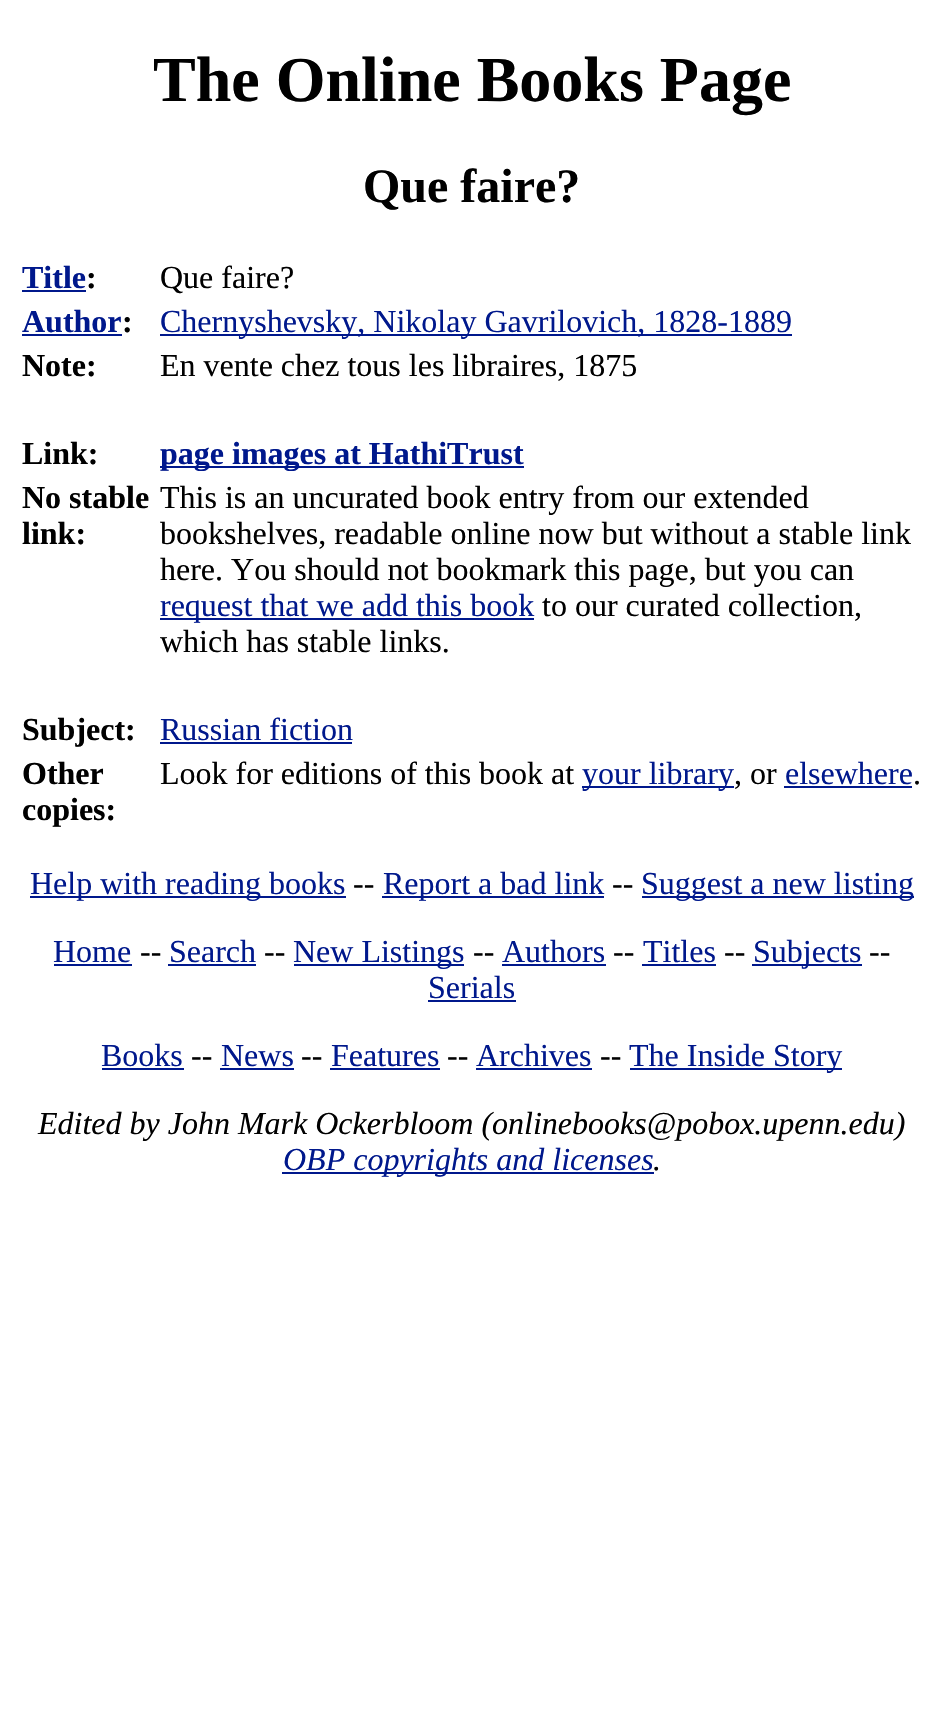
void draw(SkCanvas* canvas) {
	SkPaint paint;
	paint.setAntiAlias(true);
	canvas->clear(0xffffffff);
	SkFont f1(fontMgr->matchFamilyStyle("Liberation Serif", SkFontStyle::Bold()), 64);
	f1.setSubpixel(true);
	paint.setColor(0xff000000);
	canvas->drawString("The Online Books Page", 153, 101, f1, paint);
	SkFont f2(fontMgr->matchFamilyStyle("Liberation Serif", SkFontStyle::Bold()), 48);
	f2.setSubpixel(true);
	canvas->drawString("Que faire?", 363, 202, f2, paint);
	SkFont f3(fontMgr->matchFamilyStyle("Liberation Serif", SkFontStyle::Bold()), 32);
	f3.setSubpixel(true);
	paint.setColor(0xff00188c);
	canvas->drawString("Title", 22, 288, f3, paint);
	paint.setColor(0xff000000);
	canvas->drawString(":", 86, 288, f3, paint);
	paint.setColor(0xff00188c);
	canvas->drawRect(SkRect::MakeXYWH(22, 290, 64, 2), paint);
	SkFont f4(fontMgr->matchFamilyStyle("Liberation Serif", SkFontStyle::Normal()), 32);
	f4.setSubpixel(true);
	paint.setColor(0xff000000);
	canvas->drawString("Que faire?", 160, 288, f4, paint);
	paint.setColor(0xff00188c);
	canvas->drawString("Author", 22, 332, f3, paint);
	paint.setColor(0xff000000);
	canvas->drawString(":", 122, 332, f3, paint);
	paint.setColor(0xff00188c);
	canvas->drawRect(SkRect::MakeXYWH(22, 334, 100, 2), paint);
	canvas->drawRect(SkRect::MakeXYWH(160, 334, 632, 2), paint);
	canvas->drawString("Chernyshevsky, Nikolay Gavrilovich, 1828-1889", 160, 332, f4, paint);
	paint.setColor(0xff000000);
	canvas->drawString("Note:", 22, 376, f3, paint);
	canvas->drawString("En vente chez tous les libraires, 1875", 160, 376, f4, paint);
	canvas->drawString("Link:", 22, 464, f3, paint);
	paint.setColor(0xff00188c);
	canvas->drawRect(SkRect::MakeXYWH(160, 466, 364, 2), paint);
	canvas->drawString("page images at HathiTrust", 160, 464, f3, paint);
	paint.setColor(0xff000000);
	canvas->drawString("No stable", 22, 508, f3, paint);
	canvas->drawString("link:", 22, 544, f3, paint);
	canvas->drawString("This is an uncurated book entry from our extended", 160, 508, f4, paint);
	canvas->drawString("bookshelves, readable online now but without a stable link", 160, 544, f4, paint);
	canvas->drawString("here. You should not bookmark this page, but you can", 160, 580, f4, paint);
	paint.setColor(0xff00188c);
	canvas->drawRect(SkRect::MakeXYWH(160, 618, 374, 2), paint);
	canvas->drawString("request that we add this book", 160, 616, f4, paint);
	paint.setColor(0xff000000);
	canvas->drawString("to our curated collection,", 542, 616, f4, paint);
	canvas->drawString("which has stable links.", 160, 652, f4, paint);
	canvas->drawString("Subject:", 22, 740, f3, paint);
	paint.setColor(0xff00188c);
	canvas->drawString("Russian fiction", 160, 740, f4, paint);
	canvas->drawRect(SkRect::MakeXYWH(160, 742, 192, 2), paint);
	paint.setColor(0xff000000);
	canvas->drawString("Other", 22, 784, f3, paint);
	canvas->drawString("copies:", 22, 820, f3, paint);
	canvas->drawString("Look for editions of this book at", 160, 784, f4, paint);
	paint.setColor(0xff00188c);
	canvas->drawRect(SkRect::MakeXYWH(582, 786, 152, 2), paint);
	canvas->drawString("your library", 582, 784, f4, paint);
	paint.setColor(0xff000000);
	canvas->drawString(", or", 734, 784, f4, paint);
	paint.setColor(0xff00188c);
	canvas->drawString("elsewhere", 785, 784, f4, paint);
	canvas->drawRect(SkRect::MakeXYWH(784, 786, 128, 2), paint);
	paint.setColor(0xff000000);
	canvas->drawString(".", 913, 784, f4, paint);
	paint.setColor(0xff00188c);
	canvas->drawRect(SkRect::MakeXYWH(30, 896, 316, 2), paint);
	canvas->drawString("Help with reading books", 30, 894, f4, paint);
	paint.setColor(0xff000000);
	canvas->drawString("--", 353, 894, f4, paint);
	paint.setColor(0xff00188c);
	canvas->drawRect(SkRect::MakeXYWH(382, 896, 222, 2), paint);
	canvas->drawString("Report a bad link", 383, 894, f4, paint);
	paint.setColor(0xff000000);
	canvas->drawString("--", 612, 894, f4, paint);
	paint.setColor(0xff00188c);
	canvas->drawRect(SkRect::MakeXYWH(642, 896, 272, 2), paint);
	canvas->drawString("Suggest a new listing", 641, 894, f4, paint);
	canvas->drawString("Home", 53, 962, f4, paint);
	canvas->drawRect(SkRect::MakeXYWH(54, 964, 78, 2), paint);
	paint.setColor(0xff000000);
	canvas->drawString("--", 140, 962, f4, paint);
	paint.setColor(0xff00188c);
	canvas->drawString("Search", 169, 962, f4, paint);
	canvas->drawRect(SkRect::MakeXYWH(168, 964, 88, 2), paint);
	paint.setColor(0xff000000);
	canvas->drawString("--", 264, 962, f4, paint);
	paint.setColor(0xff00188c);
	canvas->drawRect(SkRect::MakeXYWH(294, 964, 170, 2), paint);
	canvas->drawString("New Listings", 293, 962, f4, paint);
	paint.setColor(0xff000000);
	canvas->drawString("--", 473, 962, f4, paint);
	paint.setColor(0xff00188c);
	canvas->drawString("Authors", 502, 962, f4, paint);
	canvas->drawRect(SkRect::MakeXYWH(502, 964, 104, 2), paint);
	paint.setColor(0xff000000);
	canvas->drawString("--", 613, 962, f4, paint);
	paint.setColor(0xff00188c);
	canvas->drawString("Titles", 643, 962, f4, paint);
	canvas->drawRect(SkRect::MakeXYWH(642, 964, 74, 2), paint);
	paint.setColor(0xff000000);
	canvas->drawString("--", 724, 962, f4, paint);
	paint.setColor(0xff00188c);
	canvas->drawRect(SkRect::MakeXYWH(752, 964, 110, 2), paint);
	canvas->drawString("Subjects", 753, 962, f4, paint);
	paint.setColor(0xff000000);
	canvas->drawString("--", 869, 962, f4, paint);
	paint.setColor(0xff00188c);
	canvas->drawString("Serials", 428, 998, f4, paint);
	canvas->drawRect(SkRect::MakeXYWH(428, 1000, 88, 2), paint);
	canvas->drawString("Books", 101, 1066, f4, paint);
	canvas->drawRect(SkRect::MakeXYWH(102, 1068, 82, 2), paint);
	paint.setColor(0xff000000);
	canvas->drawString("--", 191, 1066, f4, paint);
	paint.setColor(0xff00188c);
	canvas->drawString("News", 221, 1066, f4, paint);
	canvas->drawRect(SkRect::MakeXYWH(220, 1068, 74, 2), paint);
	paint.setColor(0xff000000);
	canvas->drawString("--", 301, 1066, f4, paint);
	paint.setColor(0xff00188c);
	canvas->drawString("Features", 331, 1066, f4, paint);
	canvas->drawRect(SkRect::MakeXYWH(330, 1068, 110, 2), paint);
	paint.setColor(0xff000000);
	canvas->drawString("--", 447, 1066, f4, paint);
	paint.setColor(0xff00188c);
	canvas->drawString("Archives", 476, 1066, f4, paint);
	canvas->drawRect(SkRect::MakeXYWH(476, 1068, 116, 2), paint);
	paint.setColor(0xff000000);
	canvas->drawString("--", 600, 1066, f4, paint);
	paint.setColor(0xff00188c);
	canvas->drawRect(SkRect::MakeXYWH(630, 1068, 212, 2), paint);
	canvas->drawString("The Inside Story", 629, 1066, f4, paint);
	SkFont f5(fontMgr->matchFamilyStyle("Liberation Serif", SkFontStyle::Italic()), 32);
	f5.setSubpixel(true);
	paint.setColor(0xff000000);
	canvas->drawString("Edited by John Mark Ockerbloom (onlinebooks@pobox.upenn.edu)", 38, 1134, f5, paint);
	paint.setColor(0xff00188c);
	canvas->drawRect(SkRect::MakeXYWH(282, 1172, 372, 2), paint);
	canvas->drawString("OBP copyrights and licenses", 283, 1170, f5, paint);
	paint.setColor(0xff000000);
	canvas->drawString(".", 653, 1170, f5, paint);
}
